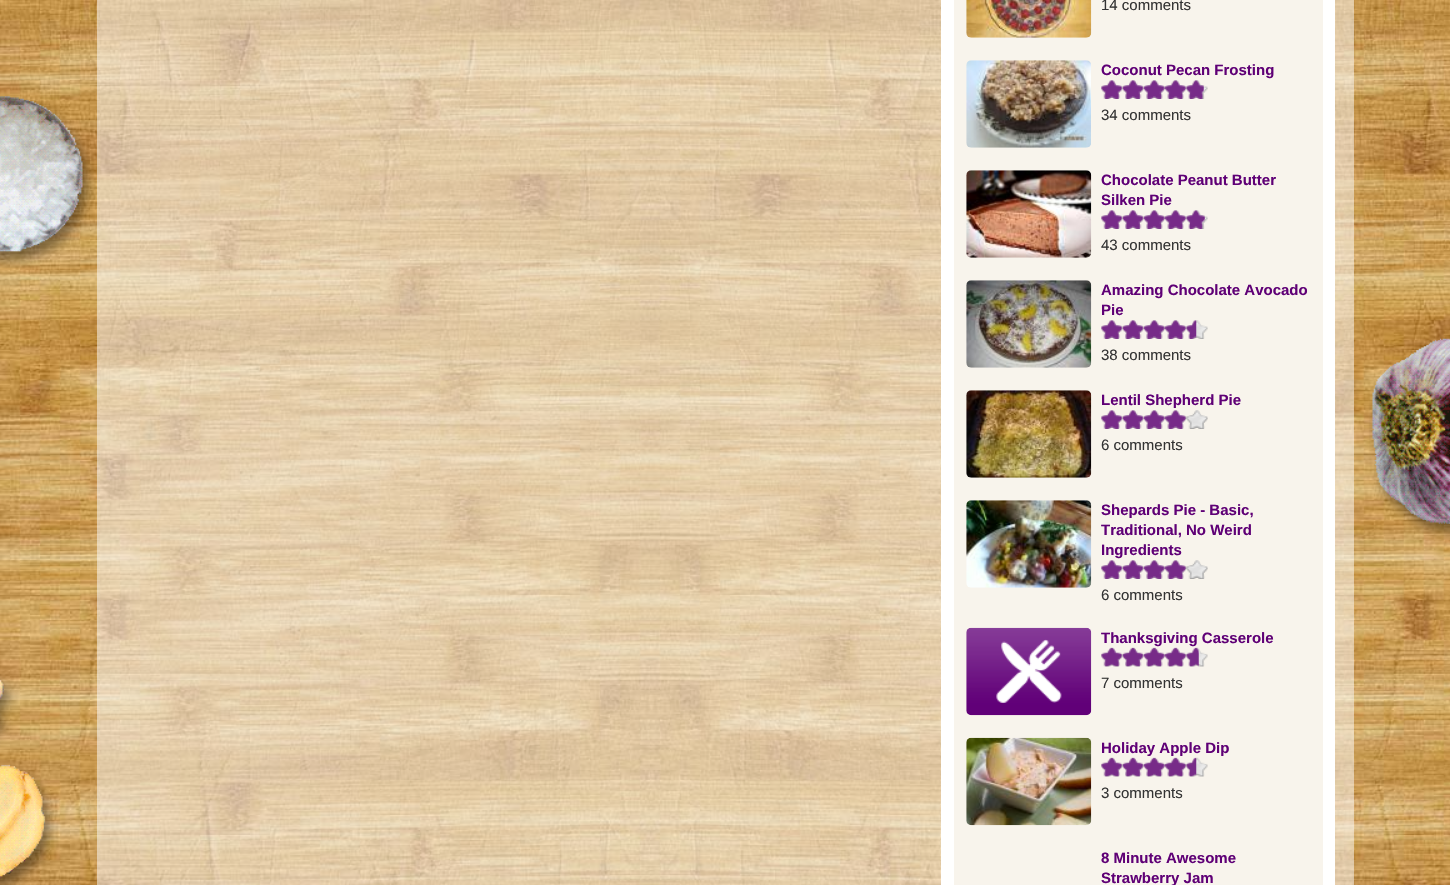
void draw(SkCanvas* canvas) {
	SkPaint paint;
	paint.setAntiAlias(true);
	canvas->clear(0xffffffff);
	canvas->drawImageRect(SkImages::DeferredFromEncodedData(SkData::MakeFromFileName("img1.png")), SkRect::MakeXYWH(0, 0, 1450, 885), SkSamplingOptions());
	canvas->drawImageRect(SkImages::DeferredFromEncodedData(SkData::MakeFromFileName("img2.png")), SkRect::MakeXYWH(0, 96, 96, 172), SkSamplingOptions());
	paint.setColor(0x80ffffff);
	canvas->drawRect(SkRect::MakeXYWH(97, 0, 1257, 885), paint);
	paint.setColor(0xffffffff);
	canvas->drawRect(SkRect::MakeXYWH(941, 0, 394, 885), paint);
	paint.setColor(0xfff8f4ec);
	canvas->drawRect(SkRect::MakeXYWH(954, 0, 369, 885), paint);
	canvas->drawImageRect(SkImages::DeferredFromEncodedData(SkData::MakeFromFileName("img3.png")), SkRect::MakeXYWH(966, 0, 126, 38), SkSamplingOptions());
	SkFont f1(fontMgr->matchFamilyStyle("Liberation Sans", SkFontStyle::Normal()), 15);
	f1.setSubpixel(true);
	paint.setColor(0xff333333);
	canvas->drawString("14 comments", 1101, 10, f1, paint);
	canvas->drawImageRect(SkImages::DeferredFromEncodedData(SkData::MakeFromFileName("img4.png")), SkRect::MakeXYWH(966, 60, 125, 88), SkSamplingOptions());
	SkFont f2(fontMgr->matchFamilyStyle("Liberation Sans", SkFontStyle::Bold()), 15);
	f2.setSubpixel(true);
	paint.setColor(0xff5f0076);
	canvas->drawString("Coconut Pecan Frosting", 1101, 75, f2, paint);
	canvas->drawImageRect(SkImages::DeferredFromEncodedData(SkData::MakeFromFileName("img5.png")), SkRect::MakeXYWH(1101, 80, 22, 19), SkSamplingOptions());
	canvas->drawImageRect(SkImages::DeferredFromEncodedData(SkData::MakeFromFileName("img6.png")), SkRect::MakeXYWH(1101, 80, 22, 19), SkSamplingOptions());
	canvas->drawImageRect(SkImages::DeferredFromEncodedData(SkData::MakeFromFileName("img7.png")), SkRect::MakeXYWH(1122, 80, 22, 19), SkSamplingOptions());
	canvas->drawImageRect(SkImages::DeferredFromEncodedData(SkData::MakeFromFileName("img8.png")), SkRect::MakeXYWH(1122, 80, 22, 19), SkSamplingOptions());
	canvas->drawImageRect(SkImages::DeferredFromEncodedData(SkData::MakeFromFileName("img9.png")), SkRect::MakeXYWH(1144, 80, 21, 19), SkSamplingOptions());
	canvas->drawImageRect(SkImages::DeferredFromEncodedData(SkData::MakeFromFileName("img10.png")), SkRect::MakeXYWH(1143, 80, 22, 19), SkSamplingOptions());
	canvas->drawImageRect(SkImages::DeferredFromEncodedData(SkData::MakeFromFileName("img11.png")), SkRect::MakeXYWH(1165, 80, 22, 19), SkSamplingOptions());
	canvas->drawImageRect(SkImages::DeferredFromEncodedData(SkData::MakeFromFileName("img12.png")), SkRect::MakeXYWH(1165, 80, 22, 19), SkSamplingOptions());
	canvas->drawImageRect(SkImages::DeferredFromEncodedData(SkData::MakeFromFileName("img13.png")), SkRect::MakeXYWH(1186, 80, 22, 19), SkSamplingOptions());
	canvas->drawImageRect(SkImages::DeferredFromEncodedData(SkData::MakeFromFileName("img14.png")), SkRect::MakeXYWH(1186, 80, 18, 19), SkSamplingOptions());
	paint.setColor(0xff333333);
	canvas->drawString("34 comments", 1101, 120, f1, paint);
	canvas->drawImageRect(SkImages::DeferredFromEncodedData(SkData::MakeFromFileName("img15.png")), SkRect::MakeXYWH(966, 170, 126, 88), SkSamplingOptions());
	paint.setColor(0xff5f0076);
	canvas->drawString("Chocolate Peanut Butter", 1101, 185, f2, paint);
	canvas->drawString("Silken Pie", 1101, 205, f2, paint);
	canvas->drawImageRect(SkImages::DeferredFromEncodedData(SkData::MakeFromFileName("img5.png")), SkRect::MakeXYWH(1101, 210, 22, 19), SkSamplingOptions());
	canvas->drawImageRect(SkImages::DeferredFromEncodedData(SkData::MakeFromFileName("img6.png")), SkRect::MakeXYWH(1101, 210, 22, 19), SkSamplingOptions());
	canvas->drawImageRect(SkImages::DeferredFromEncodedData(SkData::MakeFromFileName("img7.png")), SkRect::MakeXYWH(1122, 210, 22, 19), SkSamplingOptions());
	canvas->drawImageRect(SkImages::DeferredFromEncodedData(SkData::MakeFromFileName("img8.png")), SkRect::MakeXYWH(1122, 210, 22, 19), SkSamplingOptions());
	canvas->drawImageRect(SkImages::DeferredFromEncodedData(SkData::MakeFromFileName("img9.png")), SkRect::MakeXYWH(1144, 210, 21, 19), SkSamplingOptions());
	canvas->drawImageRect(SkImages::DeferredFromEncodedData(SkData::MakeFromFileName("img10.png")), SkRect::MakeXYWH(1143, 210, 22, 19), SkSamplingOptions());
	canvas->drawImageRect(SkImages::DeferredFromEncodedData(SkData::MakeFromFileName("img11.png")), SkRect::MakeXYWH(1165, 210, 22, 19), SkSamplingOptions());
	canvas->drawImageRect(SkImages::DeferredFromEncodedData(SkData::MakeFromFileName("img12.png")), SkRect::MakeXYWH(1165, 210, 22, 19), SkSamplingOptions());
	canvas->drawImageRect(SkImages::DeferredFromEncodedData(SkData::MakeFromFileName("img13.png")), SkRect::MakeXYWH(1186, 210, 22, 19), SkSamplingOptions());
	canvas->drawImageRect(SkImages::DeferredFromEncodedData(SkData::MakeFromFileName("img16.png")), SkRect::MakeXYWH(1186, 210, 19, 19), SkSamplingOptions());
	paint.setColor(0xff333333);
	canvas->drawString("43 comments", 1101, 250, f1, paint);
	canvas->drawImageRect(SkImages::DeferredFromEncodedData(SkData::MakeFromFileName("img17.png")), SkRect::MakeXYWH(966, 280, 126, 88), SkSamplingOptions());
	paint.setColor(0xff5f0076);
	canvas->drawString("Amazing Chocolate Avocado", 1101, 295, f2, paint);
	canvas->drawString("Pie", 1101, 315, f2, paint);
	canvas->drawImageRect(SkImages::DeferredFromEncodedData(SkData::MakeFromFileName("img5.png")), SkRect::MakeXYWH(1101, 320, 22, 19), SkSamplingOptions());
	canvas->drawImageRect(SkImages::DeferredFromEncodedData(SkData::MakeFromFileName("img6.png")), SkRect::MakeXYWH(1101, 320, 22, 19), SkSamplingOptions());
	canvas->drawImageRect(SkImages::DeferredFromEncodedData(SkData::MakeFromFileName("img7.png")), SkRect::MakeXYWH(1122, 320, 22, 19), SkSamplingOptions());
	canvas->drawImageRect(SkImages::DeferredFromEncodedData(SkData::MakeFromFileName("img8.png")), SkRect::MakeXYWH(1122, 320, 22, 19), SkSamplingOptions());
	canvas->drawImageRect(SkImages::DeferredFromEncodedData(SkData::MakeFromFileName("img9.png")), SkRect::MakeXYWH(1144, 320, 21, 19), SkSamplingOptions());
	canvas->drawImageRect(SkImages::DeferredFromEncodedData(SkData::MakeFromFileName("img10.png")), SkRect::MakeXYWH(1143, 320, 22, 19), SkSamplingOptions());
	canvas->drawImageRect(SkImages::DeferredFromEncodedData(SkData::MakeFromFileName("img11.png")), SkRect::MakeXYWH(1165, 320, 22, 19), SkSamplingOptions());
	canvas->drawImageRect(SkImages::DeferredFromEncodedData(SkData::MakeFromFileName("img12.png")), SkRect::MakeXYWH(1165, 320, 22, 19), SkSamplingOptions());
	canvas->drawImageRect(SkImages::DeferredFromEncodedData(SkData::MakeFromFileName("img13.png")), SkRect::MakeXYWH(1186, 320, 22, 19), SkSamplingOptions());
	canvas->drawImageRect(SkImages::DeferredFromEncodedData(SkData::MakeFromFileName("img18.png")), SkRect::MakeXYWH(1186, 320, 11, 19), SkSamplingOptions());
	paint.setColor(0xff333333);
	canvas->drawString("38 comments", 1101, 360, f1, paint);
	canvas->drawImageRect(SkImages::DeferredFromEncodedData(SkData::MakeFromFileName("img19.png")), SkRect::MakeXYWH(966, 390, 126, 88), SkSamplingOptions());
	paint.setColor(0xff5f0076);
	canvas->drawString("Lentil Shepherd Pie", 1101, 405, f2, paint);
	canvas->drawImageRect(SkImages::DeferredFromEncodedData(SkData::MakeFromFileName("img5.png")), SkRect::MakeXYWH(1101, 410, 22, 19), SkSamplingOptions());
	canvas->drawImageRect(SkImages::DeferredFromEncodedData(SkData::MakeFromFileName("img6.png")), SkRect::MakeXYWH(1101, 410, 22, 19), SkSamplingOptions());
	canvas->drawImageRect(SkImages::DeferredFromEncodedData(SkData::MakeFromFileName("img7.png")), SkRect::MakeXYWH(1122, 410, 22, 19), SkSamplingOptions());
	canvas->drawImageRect(SkImages::DeferredFromEncodedData(SkData::MakeFromFileName("img8.png")), SkRect::MakeXYWH(1122, 410, 22, 19), SkSamplingOptions());
	canvas->drawImageRect(SkImages::DeferredFromEncodedData(SkData::MakeFromFileName("img9.png")), SkRect::MakeXYWH(1144, 410, 21, 19), SkSamplingOptions());
	canvas->drawImageRect(SkImages::DeferredFromEncodedData(SkData::MakeFromFileName("img10.png")), SkRect::MakeXYWH(1143, 410, 22, 19), SkSamplingOptions());
	canvas->drawImageRect(SkImages::DeferredFromEncodedData(SkData::MakeFromFileName("img11.png")), SkRect::MakeXYWH(1165, 410, 22, 19), SkSamplingOptions());
	canvas->drawImageRect(SkImages::DeferredFromEncodedData(SkData::MakeFromFileName("img12.png")), SkRect::MakeXYWH(1165, 410, 22, 19), SkSamplingOptions());
	canvas->drawImageRect(SkImages::DeferredFromEncodedData(SkData::MakeFromFileName("img13.png")), SkRect::MakeXYWH(1186, 410, 22, 19), SkSamplingOptions());
	canvas->drawImageRect(SkImages::DeferredFromEncodedData(SkData::MakeFromFileName("img20.png")), SkRect::MakeXYWH(1186, 410, 22, 19), SkSamplingOptions());
	paint.setColor(0xff333333);
	canvas->drawString("6 comments", 1101, 450, f1, paint);
	canvas->drawImageRect(SkImages::DeferredFromEncodedData(SkData::MakeFromFileName("img21.png")), SkRect::MakeXYWH(966, 500, 126, 88), SkSamplingOptions());
	paint.setColor(0xff5f0076);
	canvas->drawString("Shepards Pie - Basic,", 1101, 515, f2, paint);
	canvas->drawString("Traditional, No Weird", 1101, 535, f2, paint);
	canvas->drawString("Ingredients", 1101, 555, f2, paint);
	canvas->drawImageRect(SkImages::DeferredFromEncodedData(SkData::MakeFromFileName("img5.png")), SkRect::MakeXYWH(1101, 560, 22, 19), SkSamplingOptions());
	canvas->drawImageRect(SkImages::DeferredFromEncodedData(SkData::MakeFromFileName("img6.png")), SkRect::MakeXYWH(1101, 560, 22, 19), SkSamplingOptions());
	canvas->drawImageRect(SkImages::DeferredFromEncodedData(SkData::MakeFromFileName("img7.png")), SkRect::MakeXYWH(1122, 560, 22, 19), SkSamplingOptions());
	canvas->drawImageRect(SkImages::DeferredFromEncodedData(SkData::MakeFromFileName("img8.png")), SkRect::MakeXYWH(1122, 560, 22, 19), SkSamplingOptions());
	canvas->drawImageRect(SkImages::DeferredFromEncodedData(SkData::MakeFromFileName("img9.png")), SkRect::MakeXYWH(1144, 560, 21, 19), SkSamplingOptions());
	canvas->drawImageRect(SkImages::DeferredFromEncodedData(SkData::MakeFromFileName("img10.png")), SkRect::MakeXYWH(1143, 560, 22, 19), SkSamplingOptions());
	canvas->drawImageRect(SkImages::DeferredFromEncodedData(SkData::MakeFromFileName("img11.png")), SkRect::MakeXYWH(1165, 560, 22, 19), SkSamplingOptions());
	canvas->drawImageRect(SkImages::DeferredFromEncodedData(SkData::MakeFromFileName("img12.png")), SkRect::MakeXYWH(1165, 560, 22, 19), SkSamplingOptions());
	canvas->drawImageRect(SkImages::DeferredFromEncodedData(SkData::MakeFromFileName("img13.png")), SkRect::MakeXYWH(1186, 560, 22, 19), SkSamplingOptions());
	canvas->drawImageRect(SkImages::DeferredFromEncodedData(SkData::MakeFromFileName("img20.png")), SkRect::MakeXYWH(1186, 560, 22, 19), SkSamplingOptions());
	paint.setColor(0xff333333);
	canvas->drawString("6 comments", 1101, 600, f1, paint);
	canvas->drawImageRect(SkImages::DeferredFromEncodedData(SkData::MakeFromFileName("img22.png")), SkRect::MakeXYWH(966, 627, 126, 89), SkSamplingOptions());
	paint.setColor(0xff5f0076);
	canvas->drawString("Thanksgiving Casserole", 1101, 643, f2, paint);
	canvas->drawImageRect(SkImages::DeferredFromEncodedData(SkData::MakeFromFileName("img23.png")), SkRect::MakeXYWH(1101, 647, 22, 20), SkSamplingOptions());
	canvas->drawImageRect(SkImages::DeferredFromEncodedData(SkData::MakeFromFileName("img24.png")), SkRect::MakeXYWH(1101, 647, 22, 20), SkSamplingOptions());
	canvas->drawImageRect(SkImages::DeferredFromEncodedData(SkData::MakeFromFileName("img25.png")), SkRect::MakeXYWH(1122, 647, 22, 20), SkSamplingOptions());
	canvas->drawImageRect(SkImages::DeferredFromEncodedData(SkData::MakeFromFileName("img26.png")), SkRect::MakeXYWH(1122, 647, 22, 20), SkSamplingOptions());
	canvas->drawImageRect(SkImages::DeferredFromEncodedData(SkData::MakeFromFileName("img27.png")), SkRect::MakeXYWH(1144, 647, 21, 20), SkSamplingOptions());
	canvas->drawImageRect(SkImages::DeferredFromEncodedData(SkData::MakeFromFileName("img28.png")), SkRect::MakeXYWH(1143, 647, 22, 20), SkSamplingOptions());
	canvas->drawImageRect(SkImages::DeferredFromEncodedData(SkData::MakeFromFileName("img29.png")), SkRect::MakeXYWH(1165, 647, 22, 20), SkSamplingOptions());
	canvas->drawImageRect(SkImages::DeferredFromEncodedData(SkData::MakeFromFileName("img30.png")), SkRect::MakeXYWH(1165, 647, 22, 20), SkSamplingOptions());
	canvas->drawImageRect(SkImages::DeferredFromEncodedData(SkData::MakeFromFileName("img31.png")), SkRect::MakeXYWH(1186, 647, 22, 20), SkSamplingOptions());
	canvas->drawImageRect(SkImages::DeferredFromEncodedData(SkData::MakeFromFileName("img32.png")), SkRect::MakeXYWH(1186, 647, 13, 20), SkSamplingOptions());
	paint.setColor(0xff333333);
	canvas->drawString("7 comments", 1101, 688, f1, paint);
	canvas->drawImageRect(SkImages::DeferredFromEncodedData(SkData::MakeFromFileName("img33.png")), SkRect::MakeXYWH(966, 737, 126, 89), SkSamplingOptions());
	paint.setColor(0xff5f0076);
	canvas->drawString("Holiday Apple Dip", 1101, 753, f2, paint);
	canvas->drawImageRect(SkImages::DeferredFromEncodedData(SkData::MakeFromFileName("img23.png")), SkRect::MakeXYWH(1101, 757, 22, 20), SkSamplingOptions());
	canvas->drawImageRect(SkImages::DeferredFromEncodedData(SkData::MakeFromFileName("img24.png")), SkRect::MakeXYWH(1101, 757, 22, 20), SkSamplingOptions());
	canvas->drawImageRect(SkImages::DeferredFromEncodedData(SkData::MakeFromFileName("img25.png")), SkRect::MakeXYWH(1122, 757, 22, 20), SkSamplingOptions());
	canvas->drawImageRect(SkImages::DeferredFromEncodedData(SkData::MakeFromFileName("img26.png")), SkRect::MakeXYWH(1122, 757, 22, 20), SkSamplingOptions());
	canvas->drawImageRect(SkImages::DeferredFromEncodedData(SkData::MakeFromFileName("img27.png")), SkRect::MakeXYWH(1144, 757, 21, 20), SkSamplingOptions());
	canvas->drawImageRect(SkImages::DeferredFromEncodedData(SkData::MakeFromFileName("img28.png")), SkRect::MakeXYWH(1143, 757, 22, 20), SkSamplingOptions());
	canvas->drawImageRect(SkImages::DeferredFromEncodedData(SkData::MakeFromFileName("img29.png")), SkRect::MakeXYWH(1165, 757, 22, 20), SkSamplingOptions());
	canvas->drawImageRect(SkImages::DeferredFromEncodedData(SkData::MakeFromFileName("img30.png")), SkRect::MakeXYWH(1165, 757, 22, 20), SkSamplingOptions());
	canvas->drawImageRect(SkImages::DeferredFromEncodedData(SkData::MakeFromFileName("img31.png")), SkRect::MakeXYWH(1186, 757, 22, 20), SkSamplingOptions());
	canvas->drawImageRect(SkImages::DeferredFromEncodedData(SkData::MakeFromFileName("img34.png")), SkRect::MakeXYWH(1186, 757, 11, 20), SkSamplingOptions());
	paint.setColor(0xff333333);
	canvas->drawString("3 comments", 1101, 798, f1, paint);
	paint.setColor(0xff5f0076);
	canvas->drawString("8 Minute Awesome", 1101, 863, f2, paint);
	canvas->drawString("Strawberry Jam", 1101, 883, f2, paint);
	canvas->drawImageRect(SkImages::DeferredFromEncodedData(SkData::MakeFromFileName("img35.png")), SkRect::MakeXYWH(1369, 338, 81, 202), SkSamplingOptions());
	canvas->drawImageRect(SkImages::DeferredFromEncodedData(SkData::MakeFromFileName("img36.png")), SkRect::MakeXYWH(0, 674, 58, 211), SkSamplingOptions());
}
